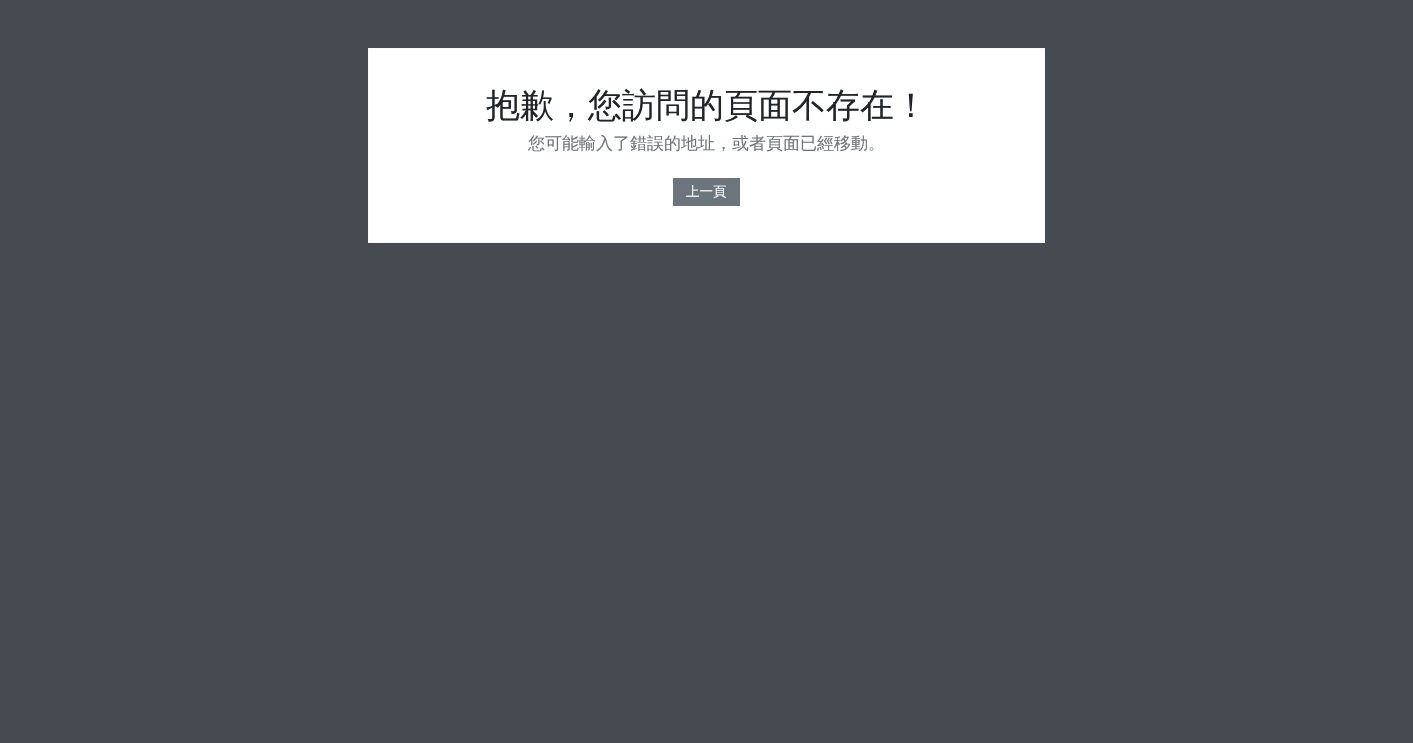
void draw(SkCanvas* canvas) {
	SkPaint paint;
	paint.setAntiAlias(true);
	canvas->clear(0xff454b51);
	paint.setColor(0xffffffff);
	canvas->drawRect(SkRect::MakeXYWH(368.5, 48.5, 676, 194), paint);
	paint.setStroke(true);
	paint.setStrokeWidth(1);
	paint.setColor(0xfff8f9fa);
	canvas->drawRect(SkRect::MakeXYWH(368.5, 48.5, 676, 194), paint);
	SkFont f1(fontMgr->matchFamilyStyle("WenQuanYi Zen Hei", SkFontStyle(500, SkFontStyle::kNormal_Width, SkFontStyle::kUpright_Slant)), 34);
	f1.setSubpixel(true);
	paint.setStroke(false);
	paint.setColor(0xff212529);
	canvas->drawString("抱歉，您訪問的頁面不存在！", 486, 117, f1, paint);
	SkFont f2(fontMgr->matchFamilyStyle("WenQuanYi Zen Hei", SkFontStyle(500, SkFontStyle::kNormal_Width, SkFontStyle::kUpright_Slant)), 17);
	f2.setSubpixel(true);
	paint.setColor(0xff6c757d);
	canvas->drawString("您可能輸入了錯誤的地址，或者頁面已經移動。", 528, 149, f2, paint);
	canvas->drawRect(SkRect::MakeXYWH(673, 178, 67, 28), paint);
	SkFont f3(fontMgr->matchFamilyStyle("WenQuanYi Zen Hei", SkFontStyle(500, SkFontStyle::kNormal_Width, SkFontStyle::kUpright_Slant)), 13.5);
	f3.setSubpixel(true);
	paint.setColor(0xffffffff);
	canvas->drawString("上一頁", 686, 196, f3, paint);
}
